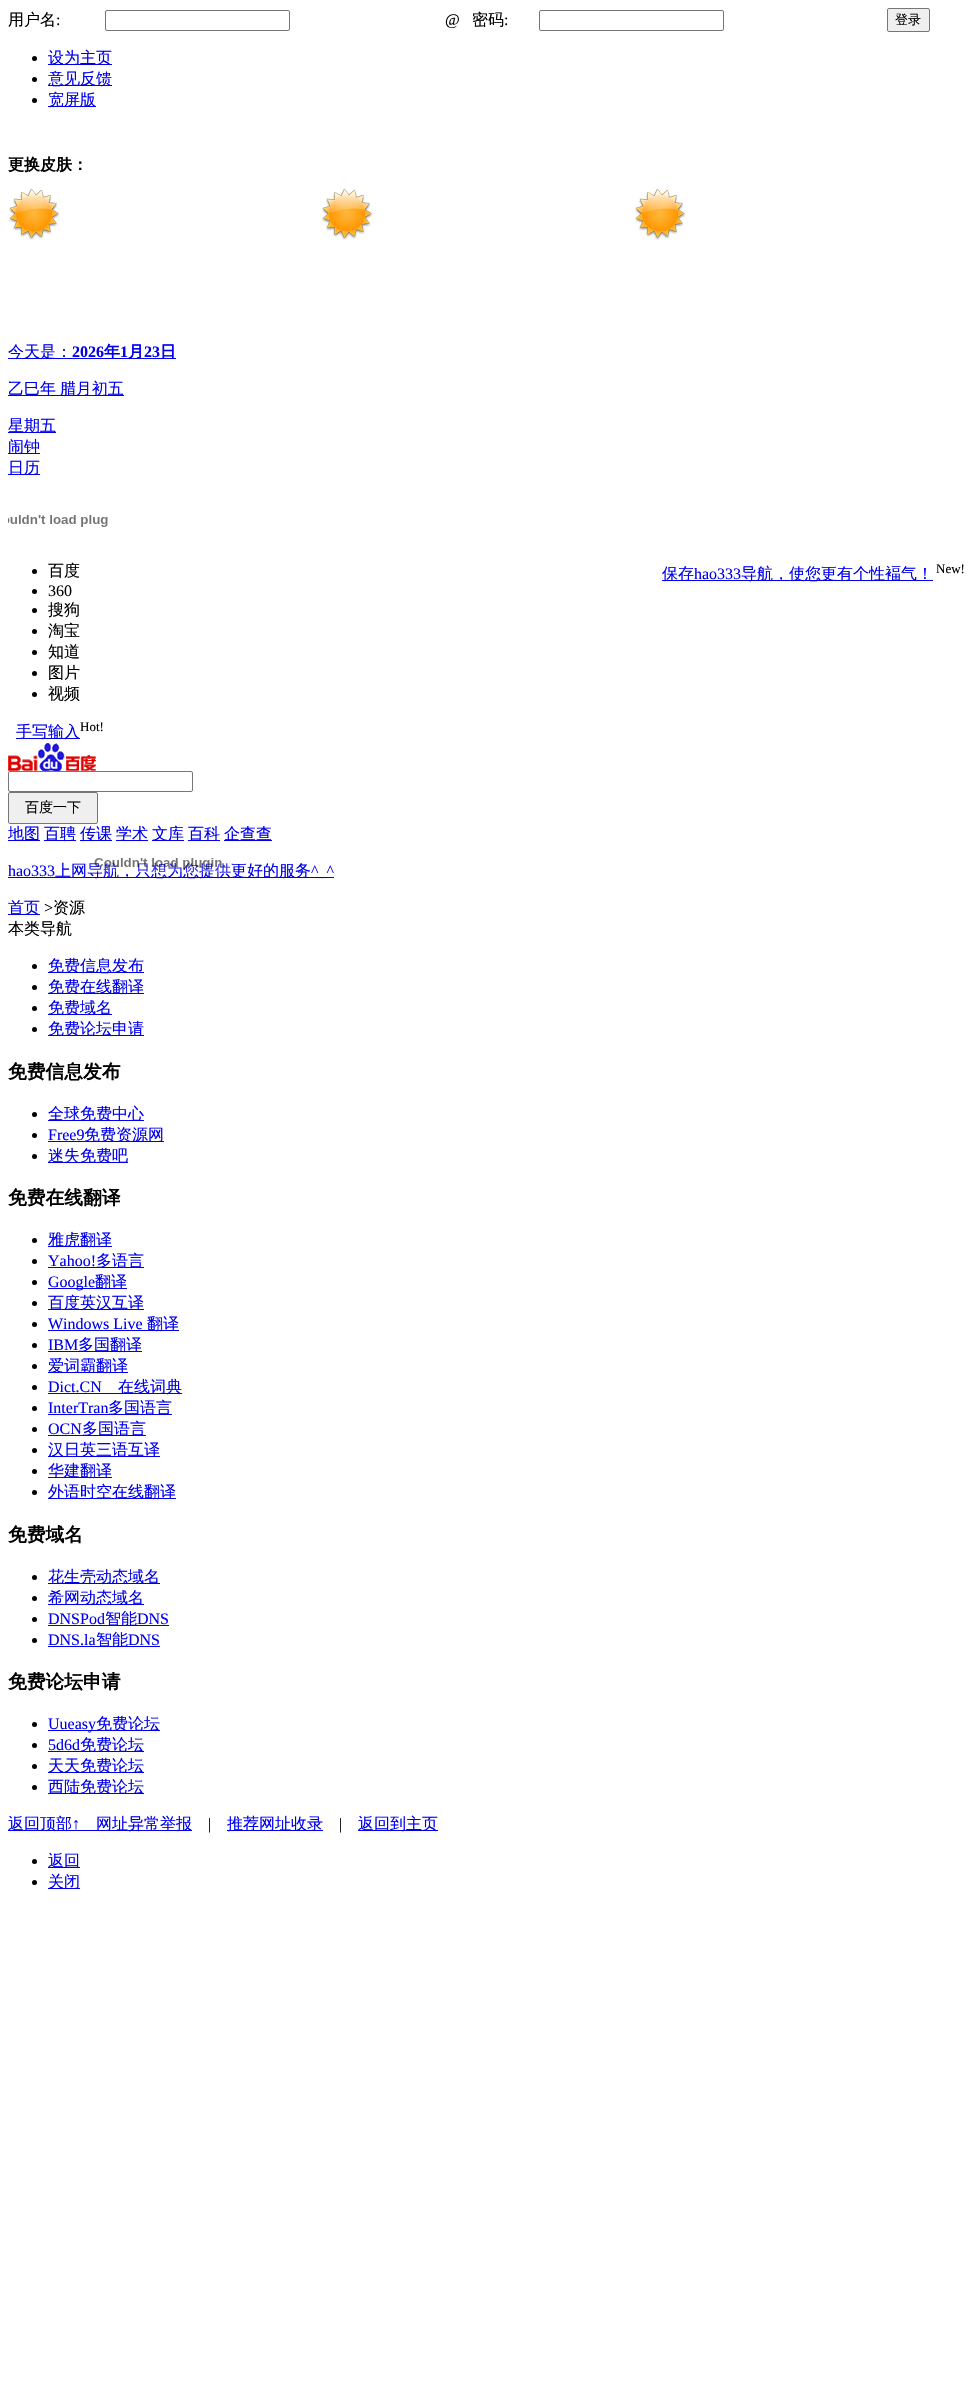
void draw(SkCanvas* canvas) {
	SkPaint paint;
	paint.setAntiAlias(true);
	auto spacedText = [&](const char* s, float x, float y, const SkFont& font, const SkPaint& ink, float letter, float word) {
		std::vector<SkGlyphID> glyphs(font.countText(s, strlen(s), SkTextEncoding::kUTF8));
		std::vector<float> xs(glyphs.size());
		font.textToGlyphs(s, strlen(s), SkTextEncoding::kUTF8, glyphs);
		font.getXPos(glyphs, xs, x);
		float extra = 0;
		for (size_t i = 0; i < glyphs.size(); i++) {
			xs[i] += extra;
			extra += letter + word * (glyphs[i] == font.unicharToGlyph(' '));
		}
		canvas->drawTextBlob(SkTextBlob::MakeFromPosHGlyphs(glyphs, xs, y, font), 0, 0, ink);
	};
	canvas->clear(0xffffffff);
	SkFont f1(fontMgr->matchFamilyStyle("WenQuanYi Zen Hei", SkFontStyle(500, SkFontStyle::kNormal_Width, SkFontStyle::kUpright_Slant)), 16);
	f1.setSubpixel(true);
	paint.setColor(0xff000000);
	canvas->drawString("用户名", 8, 25, f1, paint);
	SkFont f2(fontMgr->matchFamilyStyle("Liberation Serif", SkFontStyle::Normal()), 16);
	f2.setSubpixel(true);
	canvas->drawString(":", 56, 25, f2, paint);
	paint.setStroke(true);
	paint.setStrokeWidth(1);
	paint.setColor(0xff767676);
	canvas->drawRoundRect(SkRect::MakeXYWH(105.5, 10.5, 184, 20), 1.5, 1.5, paint);
	paint.setStroke(false);
	paint.setColor(0xff000000);
	canvas->drawString("@", 445, 25, f2, paint);
	canvas->drawString("密码", 472, 25, f1, paint);
	canvas->drawString(":", 504, 25, f2, paint);
	paint.setStroke(true);
	paint.setColor(0xff767676);
	canvas->drawRoundRect(SkRect::MakeXYWH(539.5, 10.5, 184, 20), 1.5, 1.5, paint);
	paint.setStroke(false);
	paint.setColor(0xffefefef);
	canvas->drawRoundRect(SkRect::MakeXYWH(887.5, 8.5, 42, 23), 1.5, 1.5, paint);
	paint.setStroke(true);
	paint.setColor(0xff767676);
	canvas->drawRoundRect(SkRect::MakeXYWH(887.5, 8.5, 42, 23), 1.5, 1.5, paint);
	SkFont f3(fontMgr->matchFamilyStyle("WenQuanYi Zen Hei", SkFontStyle(500, SkFontStyle::kNormal_Width, SkFontStyle::kUpright_Slant)), 13);
	f3.setSubpixel(true);
	paint.setStroke(false);
	paint.setColor(0xff000000);
	canvas->drawString("登录", 895, 24, f3, paint);
	canvas->drawCircle(34.5, 58.5, 2.5, paint);
	paint.setColor(0xff0000ee);
	canvas->drawRect(SkRect::MakeXYWH(48, 64, 64, 1), paint);
	canvas->drawString("设为主页", 48, 63, f1, paint);
	paint.setColor(0xff000000);
	canvas->drawCircle(34.5, 79.5, 2.5, paint);
	paint.setColor(0xff0000ee);
	canvas->drawRect(SkRect::MakeXYWH(48, 85, 64, 1), paint);
	canvas->drawString("意见反馈", 48, 84, f1, paint);
	paint.setColor(0xff000000);
	canvas->drawCircle(34.5, 100.5, 2.5, paint);
	paint.setColor(0xff0000ee);
	canvas->drawRect(SkRect::MakeXYWH(48, 106, 48, 1), paint);
	canvas->drawString("宽屏版", 48, 105, f1, paint);
	SkFont f4(fontMgr->matchFamilyStyle("WenQuanYi Zen Hei", SkFontStyle::Bold()), 16);
	f4.setSubpixel(true);
	paint.setColor(0xff000000);
	canvas->drawString("更换皮肤：", 8, 170, f4, paint);
	canvas->drawImageRect(SkImages::DeferredFromEncodedData(SkData::MakeFromFileName("img1.png")), SkRect::MakeXYWH(9, 188, 677, 52), SkSamplingOptions());
	paint.setColor(0xff0000ee);
	canvas->drawRect(SkRect::MakeXYWH(8, 358, 168, 1), paint);
	canvas->drawString("今天是：", 8, 357, f1, paint);
	SkFont f5(fontMgr->matchFamilyStyle("Liberation Serif", SkFontStyle::Bold()), 16);
	f5.setSubpixel(true);
	canvas->drawString("2026", 72, 357, f5, paint);
	canvas->drawString("年", 104, 357, f4, paint);
	canvas->drawString("1", 120, 357, f5, paint);
	canvas->drawString("月", 128, 357, f4, paint);
	canvas->drawString("23", 144, 357, f5, paint);
	canvas->drawString("日", 160, 357, f4, paint);
	canvas->drawRect(SkRect::MakeXYWH(8, 395, 116, 1), paint);
	spacedText("乙巳年 腊月初五", 8, 394, f1, paint, 0, -1);
	canvas->drawRect(SkRect::MakeXYWH(8, 432, 48, 1), paint);
	canvas->drawString("星期五", 8, 431, f1, paint);
	canvas->drawRect(SkRect::MakeXYWH(8, 453, 32, 1), paint);
	canvas->drawString("闹钟", 8, 452, f1, paint);
	canvas->drawRect(SkRect::MakeXYWH(8, 474, 32, 1), paint);
	canvas->drawString("日历", 8, 473, f1, paint);
	canvas->drawImageRect(SkImages::DeferredFromEncodedData(SkData::MakeFromFileName("img2.png")), SkRect::MakeXYWH(8, 515, 100, 12), SkSamplingOptions());
	paint.setColor(0xff000000);
	canvas->drawCircle(34.5, 571.5, 2.5, paint);
	canvas->drawString("百度", 48, 576, f1, paint);
	canvas->drawCircle(34.5, 591.5, 2.5, paint);
	canvas->drawString("360", 48, 596, f2, paint);
	canvas->drawCircle(34.5, 610.5, 2.5, paint);
	canvas->drawString("搜狗", 48, 615, f1, paint);
	canvas->drawCircle(34.5, 631.5, 2.5, paint);
	canvas->drawString("淘宝", 48, 636, f1, paint);
	canvas->drawCircle(34.5, 652.5, 2.5, paint);
	canvas->drawString("知道", 48, 657, f1, paint);
	canvas->drawCircle(34.5, 673.5, 2.5, paint);
	canvas->drawString("图片", 48, 678, f1, paint);
	canvas->drawCircle(34.5, 694.5, 2.5, paint);
	canvas->drawString("视频", 48, 699, f1, paint);
	paint.setColor(0xff0000ee);
	canvas->drawRect(SkRect::MakeXYWH(16, 738, 64, 1), paint);
	canvas->drawString("手写输入", 16, 737, f1, paint);
	SkFont f6(fontMgr->matchFamilyStyle("Liberation Serif", SkFontStyle::Normal()), 13);
	f6.setSubpixel(true);
	paint.setColor(0xff000000);
	canvas->drawString("Hot!", 80, 731, f6, paint);
	paint.setColor(0xff0000ee);
	canvas->drawRect(SkRect::MakeXYWH(662, 580, 271, 1), paint);
	canvas->drawString("保存", 662, 579, f1, paint);
	canvas->drawString("hao333", 694, 579, f2, paint);
	canvas->drawString("导航，使您更有个性褔气！", 741, 579, f1, paint);
	paint.setColor(0xff000000);
	canvas->drawString("New!", 936, 573, f6, paint);
	canvas->drawImageRect(SkImages::DeferredFromEncodedData(SkData::MakeFromFileName("img3.png")), SkRect::MakeXYWH(8, 743, 88, 28), SkSamplingOptions());
	paint.setStroke(true);
	paint.setColor(0xff767676);
	canvas->drawRoundRect(SkRect::MakeXYWH(8.5, 771.5, 184, 20), 1.5, 1.5, paint);
	paint.setStroke(false);
	paint.setColor(0xffefefef);
	canvas->drawRoundRect(SkRect::MakeXYWH(8.5, 792.5, 89, 31), 1.5, 1.5, paint);
	paint.setStroke(true);
	paint.setColor(0xff767676);
	canvas->drawRoundRect(SkRect::MakeXYWH(8.5, 792.5, 89, 31), 1.5, 1.5, paint);
	SkFont f7(fontMgr->matchFamilyStyle("WenQuanYi Zen Hei", SkFontStyle(500, SkFontStyle::kNormal_Width, SkFontStyle::kUpright_Slant)), 14);
	f7.setSubpixel(true);
	paint.setStroke(false);
	paint.setColor(0xff000000);
	canvas->drawString("百度一下", 25, 812, f7, paint);
	paint.setColor(0xff0000ee);
	canvas->drawRect(SkRect::MakeXYWH(8, 840, 32, 1), paint);
	canvas->drawString("地图", 8, 839, f1, paint);
	canvas->drawRect(SkRect::MakeXYWH(44, 840, 32, 1), paint);
	canvas->drawString("百聘", 44, 839, f1, paint);
	canvas->drawRect(SkRect::MakeXYWH(80, 840, 32, 1), paint);
	canvas->drawString("传课", 80, 839, f1, paint);
	canvas->drawRect(SkRect::MakeXYWH(116, 840, 32, 1), paint);
	canvas->drawString("学术", 116, 839, f1, paint);
	canvas->drawRect(SkRect::MakeXYWH(152, 840, 32, 1), paint);
	canvas->drawString("文库", 152, 839, f1, paint);
	canvas->drawRect(SkRect::MakeXYWH(188, 840, 32, 1), paint);
	canvas->drawString("百科", 188, 839, f1, paint);
	canvas->drawRect(SkRect::MakeXYWH(224, 840, 48, 1), paint);
	canvas->drawString("企查查", 224, 839, f1, paint);
	canvas->drawRect(SkRect::MakeXYWH(8, 877, 326, 1), paint);
	canvas->drawString("上网导航，只想为您提供更好的服务", 55, 876, f1, paint);
	canvas->drawImageRect(SkImages::DeferredFromEncodedData(SkData::MakeFromFileName("img4.png")), SkRect::MakeXYWH(89, 858, 143, 14), SkSamplingOptions());
	canvas->drawString("hao333", 8, 876, f2, paint);
	canvas->drawString("^_^", 311, 876, f2, paint);
	canvas->drawRect(SkRect::MakeXYWH(8, 914, 32, 1), paint);
	canvas->drawString("首页", 8, 913, f1, paint);
	paint.setColor(0xff000000);
	canvas->drawString(">", 44, 913, f2, paint);
	canvas->drawString("资源", 53, 913, f1, paint);
	canvas->drawString("本类导航", 8, 934, f1, paint);
	canvas->drawCircle(34.5, 966.5, 2.5, paint);
	paint.setColor(0xff0000ee);
	canvas->drawRect(SkRect::MakeXYWH(48, 972, 96, 1), paint);
	canvas->drawString("免费信息发布", 48, 971, f1, paint);
	paint.setColor(0xff000000);
	canvas->drawCircle(34.5, 987.5, 2.5, paint);
	paint.setColor(0xff0000ee);
	canvas->drawRect(SkRect::MakeXYWH(48, 993, 96, 1), paint);
	canvas->drawString("免费在线翻译", 48, 992, f1, paint);
	paint.setColor(0xff000000);
	canvas->drawCircle(34.5, 1008.5, 2.5, paint);
	paint.setColor(0xff0000ee);
	canvas->drawRect(SkRect::MakeXYWH(48, 1014, 64, 1), paint);
	canvas->drawString("免费域名", 48, 1013, f1, paint);
	paint.setColor(0xff000000);
	canvas->drawCircle(34.5, 1029.5, 2.5, paint);
	paint.setColor(0xff0000ee);
	canvas->drawRect(SkRect::MakeXYWH(48, 1035, 96, 1), paint);
	canvas->drawString("免费论坛申请", 48, 1034, f1, paint);
	SkFont f8(fontMgr->matchFamilyStyle("WenQuanYi Zen Hei", SkFontStyle::Bold()), 18.75);
	f8.setSubpixel(true);
	paint.setColor(0xff000000);
	canvas->drawString("免费信息发布", 8, 1078, f8, paint);
	canvas->drawCircle(34.5, 1114.5, 2.5, paint);
	paint.setColor(0xff0000ee);
	canvas->drawRect(SkRect::MakeXYWH(48, 1120, 96, 1), paint);
	canvas->drawString("全球免费中心", 48, 1119, f1, paint);
	paint.setColor(0xff000000);
	canvas->drawCircle(34.5, 1135.5, 2.5, paint);
	paint.setColor(0xff0000ee);
	canvas->drawString("Free9", 48, 1140, f2, paint);
	canvas->drawRect(SkRect::MakeXYWH(48, 1141, 116, 1), paint);
	canvas->drawString("免费资源网", 84, 1140, f1, paint);
	paint.setColor(0xff000000);
	canvas->drawCircle(34.5, 1156.5, 2.5, paint);
	paint.setColor(0xff0000ee);
	canvas->drawRect(SkRect::MakeXYWH(48, 1162, 80, 1), paint);
	canvas->drawString("迷失免费吧", 48, 1161, f1, paint);
	paint.setColor(0xff000000);
	canvas->drawString("免费在线翻译", 8, 1204, f8, paint);
	canvas->drawCircle(34.5, 1240.5, 2.5, paint);
	paint.setColor(0xff0000ee);
	canvas->drawRect(SkRect::MakeXYWH(48, 1246, 64, 1), paint);
	canvas->drawString("雅虎翻译", 48, 1245, f1, paint);
	paint.setColor(0xff000000);
	canvas->drawCircle(34.5, 1261.5, 2.5, paint);
	paint.setColor(0xff0000ee);
	canvas->drawString("Yahoo!", 48, 1266, f2, paint);
	canvas->drawRect(SkRect::MakeXYWH(48, 1267, 96, 1), paint);
	canvas->drawString("多语言", 96, 1266, f1, paint);
	paint.setColor(0xff000000);
	canvas->drawCircle(34.5, 1282.5, 2.5, paint);
	paint.setColor(0xff0000ee);
	canvas->drawRect(SkRect::MakeXYWH(48, 1288, 79, 1), paint);
	canvas->drawString("Google", 48, 1287, f2, paint);
	canvas->drawString("翻译", 95, 1287, f1, paint);
	paint.setColor(0xff000000);
	canvas->drawCircle(34.5, 1303.5, 2.5, paint);
	paint.setColor(0xff0000ee);
	canvas->drawRect(SkRect::MakeXYWH(48, 1309, 96, 1), paint);
	canvas->drawString("百度英汉互译", 48, 1308, f1, paint);
	paint.setColor(0xff000000);
	canvas->drawCircle(34.5, 1324.5, 2.5, paint);
	paint.setColor(0xff0000ee);
	canvas->drawString("Windows Live", 48, 1329, f2, paint);
	canvas->drawRect(SkRect::MakeXYWH(48, 1330, 131, 1), paint);
	canvas->drawString("翻译", 147, 1329, f1, paint);
	paint.setColor(0xff000000);
	canvas->drawCircle(34.5, 1345.5, 2.5, paint);
	paint.setColor(0xff0000ee);
	canvas->drawString("IBM", 48, 1350, f2, paint);
	canvas->drawRect(SkRect::MakeXYWH(48, 1351, 94, 1), paint);
	canvas->drawString("多国翻译", 78, 1350, f1, paint);
	paint.setColor(0xff000000);
	canvas->drawCircle(34.5, 1366.5, 2.5, paint);
	paint.setColor(0xff0000ee);
	canvas->drawRect(SkRect::MakeXYWH(48, 1372, 80, 1), paint);
	canvas->drawString("爱词霸翻译", 48, 1371, f1, paint);
	paint.setColor(0xff000000);
	canvas->drawCircle(34.5, 1387.5, 2.5, paint);
	paint.setColor(0xff0000ee);
	canvas->drawString("Dict.CN", 48, 1392, f2, paint);
	canvas->drawRect(SkRect::MakeXYWH(48, 1393, 134, 1), paint);
	canvas->drawString("在线词典", 118, 1392, f1, paint);
	paint.setColor(0xff000000);
	canvas->drawCircle(34.5, 1408.5, 2.5, paint);
	paint.setColor(0xff0000ee);
	canvas->drawString("InterTran", 48, 1413, f2, paint);
	canvas->drawRect(SkRect::MakeXYWH(48, 1414, 124, 1), paint);
	canvas->drawString("多国语言", 108, 1413, f1, paint);
	paint.setColor(0xff000000);
	canvas->drawCircle(34.5, 1429.5, 2.5, paint);
	paint.setColor(0xff0000ee);
	canvas->drawString("OCN", 48, 1434, f2, paint);
	canvas->drawRect(SkRect::MakeXYWH(48, 1435, 98, 1), paint);
	canvas->drawString("多国语言", 82, 1434, f1, paint);
	paint.setColor(0xff000000);
	canvas->drawCircle(34.5, 1450.5, 2.5, paint);
	paint.setColor(0xff0000ee);
	canvas->drawRect(SkRect::MakeXYWH(48, 1456, 112, 1), paint);
	canvas->drawString("汉日英三语互译", 48, 1455, f1, paint);
	paint.setColor(0xff000000);
	canvas->drawCircle(34.5, 1471.5, 2.5, paint);
	paint.setColor(0xff0000ee);
	canvas->drawRect(SkRect::MakeXYWH(48, 1477, 64, 1), paint);
	canvas->drawString("华建翻译", 48, 1476, f1, paint);
	paint.setColor(0xff000000);
	canvas->drawCircle(34.5, 1492.5, 2.5, paint);
	paint.setColor(0xff0000ee);
	canvas->drawRect(SkRect::MakeXYWH(48, 1498, 128, 1), paint);
	canvas->drawString("外语时空在线翻译", 48, 1497, f1, paint);
	paint.setColor(0xff000000);
	canvas->drawString("免费域名", 8, 1541, f8, paint);
	canvas->drawCircle(34.5, 1577.5, 2.5, paint);
	paint.setColor(0xff0000ee);
	canvas->drawRect(SkRect::MakeXYWH(48, 1583, 112, 1), paint);
	canvas->drawString("花生壳动态域名", 48, 1582, f1, paint);
	paint.setColor(0xff000000);
	canvas->drawCircle(34.5, 1598.5, 2.5, paint);
	paint.setColor(0xff0000ee);
	canvas->drawRect(SkRect::MakeXYWH(48, 1604, 96, 1), paint);
	canvas->drawString("希网动态域名", 48, 1603, f1, paint);
	paint.setColor(0xff000000);
	canvas->drawCircle(34.5, 1619.5, 2.5, paint);
	paint.setColor(0xff0000ee);
	canvas->drawString("DNSPod", 48, 1624, f2, paint);
	canvas->drawRect(SkRect::MakeXYWH(48, 1625, 121, 1), paint);
	canvas->drawString("智能", 105, 1624, f1, paint);
	canvas->drawString("DNS", 137, 1624, f2, paint);
	paint.setColor(0xff000000);
	canvas->drawCircle(34.5, 1640.5, 2.5, paint);
	paint.setColor(0xff0000ee);
	canvas->drawString("DNS.la", 48, 1645, f2, paint);
	canvas->drawRect(SkRect::MakeXYWH(48, 1646, 112, 1), paint);
	canvas->drawString("智能", 96, 1645, f1, paint);
	canvas->drawString("DNS", 128, 1645, f2, paint);
	paint.setColor(0xff000000);
	canvas->drawString("免费论坛申请", 8, 1688, f8, paint);
	canvas->drawCircle(34.5, 1724.5, 2.5, paint);
	paint.setColor(0xff0000ee);
	canvas->drawRect(SkRect::MakeXYWH(48, 1730, 112, 1), paint);
	canvas->drawString("Uueasy", 48, 1729, f2, paint);
	canvas->drawString("免费论坛", 96, 1729, f1, paint);
	paint.setColor(0xff000000);
	canvas->drawCircle(34.5, 1745.5, 2.5, paint);
	paint.setColor(0xff0000ee);
	canvas->drawString("5d6d", 48, 1750, f2, paint);
	canvas->drawRect(SkRect::MakeXYWH(48, 1751, 96, 1), paint);
	canvas->drawString("免费论坛", 80, 1750, f1, paint);
	paint.setColor(0xff000000);
	canvas->drawCircle(34.5, 1766.5, 2.5, paint);
	paint.setColor(0xff0000ee);
	canvas->drawRect(SkRect::MakeXYWH(48, 1772, 96, 1), paint);
	canvas->drawString("天天免费论坛", 48, 1771, f1, paint);
	paint.setColor(0xff000000);
	canvas->drawCircle(34.5, 1787.5, 2.5, paint);
	paint.setColor(0xff0000ee);
	canvas->drawRect(SkRect::MakeXYWH(48, 1793, 96, 1), paint);
	canvas->drawString("西陆免费论坛", 48, 1792, f1, paint);
	canvas->drawRect(SkRect::MakeXYWH(8, 1830, 184, 1), paint);
	canvas->drawString("返回顶部", 8, 1829, f1, paint);
	canvas->drawString("↑", 72, 1829, f2, paint);
	canvas->drawString("网址异常举报", 96, 1829, f1, paint);
	paint.setColor(0xff000000);
	canvas->drawString("|", 208, 1829, f2, paint);
	paint.setColor(0xff0000ee);
	canvas->drawRect(SkRect::MakeXYWH(227, 1830, 96, 1), paint);
	canvas->drawString("推荐网址收录", 227, 1829, f1, paint);
	paint.setColor(0xff000000);
	canvas->drawString("|", 339, 1829, f2, paint);
	paint.setColor(0xff0000ee);
	canvas->drawRect(SkRect::MakeXYWH(358, 1830, 80, 1), paint);
	canvas->drawString("返回到主页", 358, 1829, f1, paint);
	paint.setColor(0xff000000);
	canvas->drawCircle(34.5, 1861.5, 2.5, paint);
	paint.setColor(0xff0000ee);
	canvas->drawRect(SkRect::MakeXYWH(48, 1867, 32, 1), paint);
	canvas->drawString("返回", 48, 1866, f1, paint);
	paint.setColor(0xff000000);
	canvas->drawCircle(34.5, 1882.5, 2.5, paint);
	paint.setColor(0xff0000ee);
	canvas->drawRect(SkRect::MakeXYWH(48, 1888, 32, 1), paint);
	canvas->drawString("关闭", 48, 1887, f1, paint);
}
